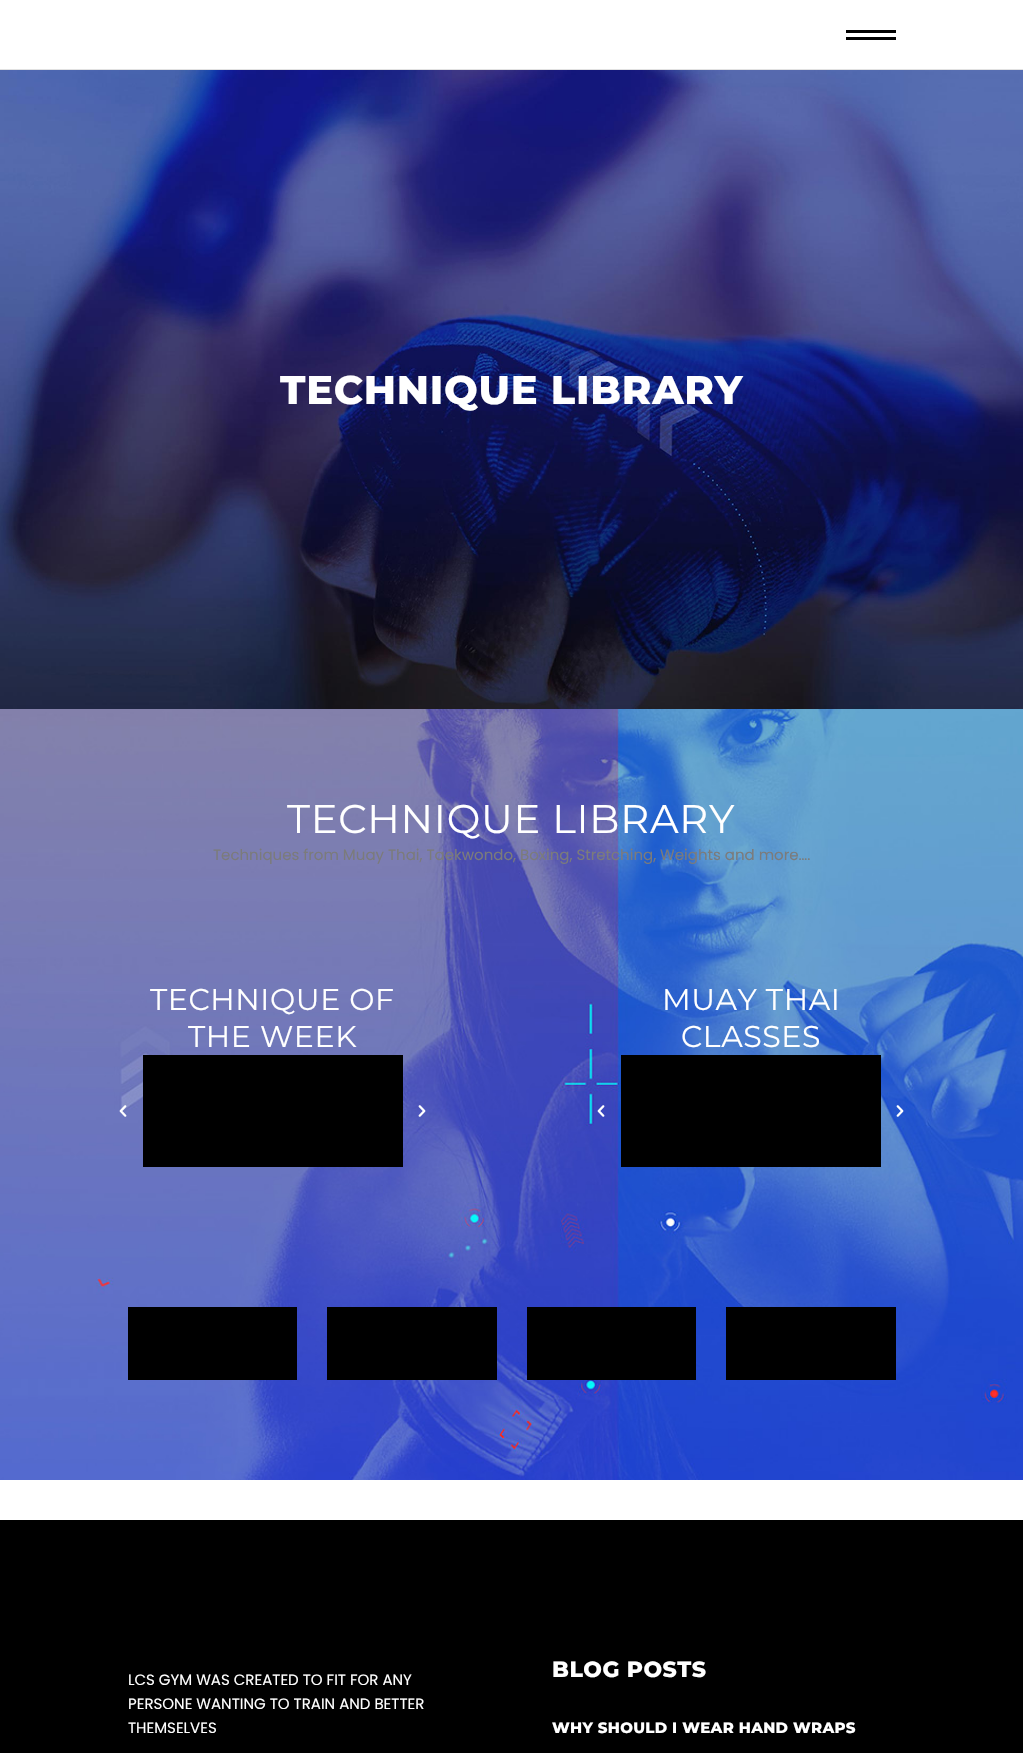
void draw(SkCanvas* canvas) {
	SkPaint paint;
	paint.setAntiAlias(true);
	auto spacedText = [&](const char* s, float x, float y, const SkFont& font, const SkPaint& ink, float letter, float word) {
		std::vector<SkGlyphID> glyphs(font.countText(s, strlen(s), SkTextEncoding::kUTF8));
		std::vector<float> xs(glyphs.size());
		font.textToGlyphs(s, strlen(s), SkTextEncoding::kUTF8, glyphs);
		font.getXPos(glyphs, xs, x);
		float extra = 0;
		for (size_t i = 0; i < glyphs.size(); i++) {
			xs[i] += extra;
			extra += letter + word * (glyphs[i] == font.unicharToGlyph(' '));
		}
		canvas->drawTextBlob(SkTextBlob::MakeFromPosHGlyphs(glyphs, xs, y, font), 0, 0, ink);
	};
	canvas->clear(0xffffffff);
	paint.setColor(0xffe1e1e1);
	canvas->drawRect(SkRect::MakeXYWH(0, 69, 1023, 1), paint);
	paint.setColor(0xff000000);
	canvas->drawRect(SkRect::MakeXYWH(846, 30, 50, 3), paint);
	canvas->drawRect(SkRect::MakeXYWH(846, 37, 50, 3), paint);
	canvas->drawImageRect(SkImages::DeferredFromEncodedData(SkData::MakeFromFileName("img1.png")), SkRect::MakeXYWH(0, 70, 1023, 639), SkSamplingOptions());
	SkFont f1(fontMgr->matchFamilyStyle("Montserrat", SkFontStyle(800, SkFontStyle::kNormal_Width, SkFontStyle::kUpright_Slant)), 40);
	f1.setSubpixel(true);
	paint.setColor(0xffffffff);
	spacedText("TECHNIQUE LIBRARY", 280, 404, f1, paint, 0.75, 0);
	canvas->drawImageRect(SkImages::DeferredFromEncodedData(SkData::MakeFromFileName("img2.png")), SkRect::MakeXYWH(0, 709, 1023, 771), SkSamplingOptions());
	SkFont f2(fontMgr->matchFamilyStyle("Montserrat", SkFontStyle::Normal()), 40);
	f2.setSubpixel(true);
	spacedText("TECHNIQUE LIBRARY", 287, 833, f2, paint, 0.75, 0);
	SkFont f3(fontMgr->matchFamilyStyle("Poppins", SkFontStyle::Normal()), 15);
	f3.setSubpixel(true);
	paint.setColor(0xff7b7b7b);
	canvas->drawString("Techniques from Muay Thai, Taekwondo, Boxing, Stretching, Weights and more….", 213, 860, f3, paint);
	SkFont f4(fontMgr->matchFamilyStyle("Montserrat", SkFontStyle::Normal()), 30);
	f4.setSubpixel(true);
	paint.setColor(0xffffffff);
	spacedText("TECHNIQUE OF", 150, 1010, f4, paint, 0.6, 0);
	spacedText("THE WEEK", 188, 1047, f4, paint, 0.6, 0);
	canvas->drawImageRect(SkImages::DeferredFromEncodedData(SkData::MakeFromFileName("img3.png")), SkRect::MakeXYWH(119, 1105, 8, 12), SkSamplingOptions());
	paint.setColor(0xff000000);
	canvas->drawRect(SkRect::MakeXYWH(143, 1055, 260, 112), paint);
	canvas->drawImageRect(SkImages::DeferredFromEncodedData(SkData::MakeFromFileName("img4.png")), SkRect::MakeXYWH(418, 1105, 8, 12), SkSamplingOptions());
	paint.setColor(0xffffffff);
	spacedText("MUAY THAI", 662, 1010, f4, paint, 0.6, 0);
	spacedText("CLASSES", 681, 1047, f4, paint, 0.6, 0);
	canvas->drawImageRect(SkImages::DeferredFromEncodedData(SkData::MakeFromFileName("img5.png")), SkRect::MakeXYWH(597, 1105, 8, 12), SkSamplingOptions());
	paint.setColor(0xff000000);
	canvas->drawRect(SkRect::MakeXYWH(621, 1055, 260, 112), paint);
	canvas->drawImageRect(SkImages::DeferredFromEncodedData(SkData::MakeFromFileName("img6.png")), SkRect::MakeXYWH(896, 1105, 8, 12), SkSamplingOptions());
	canvas->drawRect(SkRect::MakeXYWH(128, 1307, 169, 73), paint);
	canvas->drawRect(SkRect::MakeXYWH(327, 1307, 170, 73), paint);
	canvas->drawRect(SkRect::MakeXYWH(527, 1307, 169, 73), paint);
	canvas->drawRect(SkRect::MakeXYWH(726, 1307, 170, 73), paint);
	canvas->drawRect(SkRect::MakeXYWH(0, 1520, 1023, 233), paint);
	paint.setColor(0xffffffff);
	canvas->drawString("LCS GYM WAS CREATED TO FIT FOR ANY", 128, 1685, f3, paint);
	canvas->drawString("PERSONE WANTING TO TRAIN AND BETTER", 128, 1709, f3, paint);
	canvas->drawString("THEMSELVES", 128, 1733, f3, paint);
	SkFont f5(fontMgr->matchFamilyStyle("Montserrat", SkFontStyle(800, SkFontStyle::kNormal_Width, SkFontStyle::kUpright_Slant)), 22);
	f5.setSubpixel(true);
	spacedText("BLOG POSTS", 552, 1677, f5, paint, 0.5, 0);
	SkFont f6(fontMgr->matchFamilyStyle("Montserrat", SkFontStyle(800, SkFontStyle::kNormal_Width, SkFontStyle::kUpright_Slant)), 15);
	f6.setSubpixel(true);
	spacedText("WHY SHOULD I WEAR HAND WRAPS", 552, 1733, f6, paint, 0.3, 0);
}
